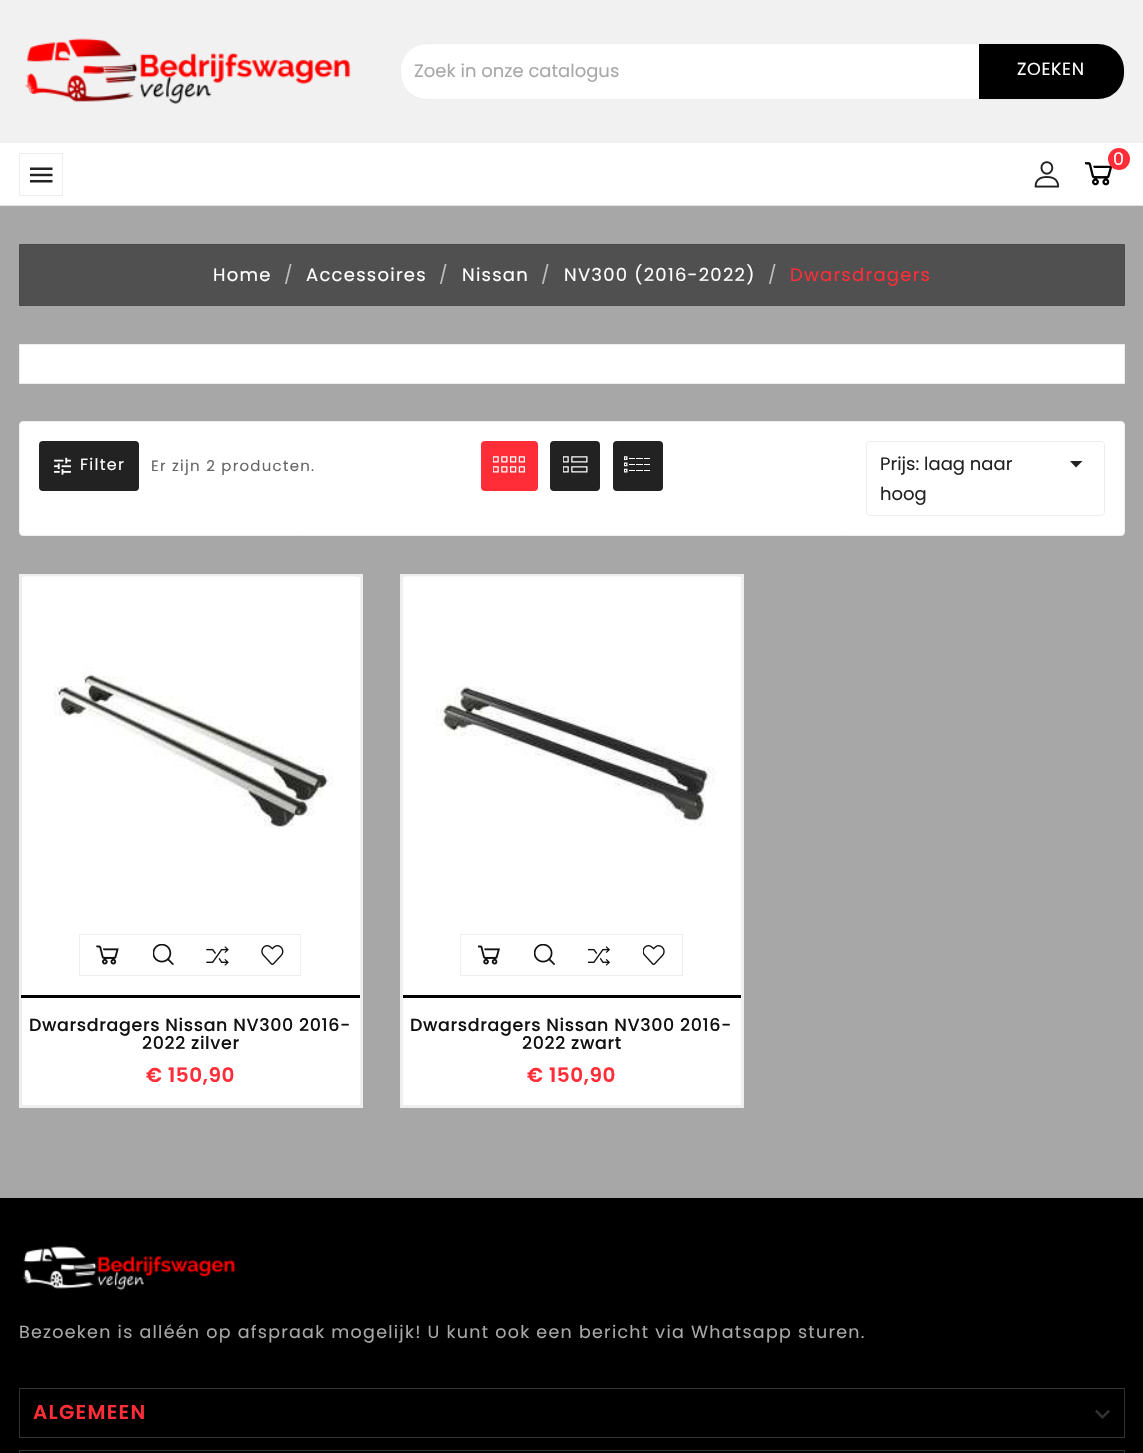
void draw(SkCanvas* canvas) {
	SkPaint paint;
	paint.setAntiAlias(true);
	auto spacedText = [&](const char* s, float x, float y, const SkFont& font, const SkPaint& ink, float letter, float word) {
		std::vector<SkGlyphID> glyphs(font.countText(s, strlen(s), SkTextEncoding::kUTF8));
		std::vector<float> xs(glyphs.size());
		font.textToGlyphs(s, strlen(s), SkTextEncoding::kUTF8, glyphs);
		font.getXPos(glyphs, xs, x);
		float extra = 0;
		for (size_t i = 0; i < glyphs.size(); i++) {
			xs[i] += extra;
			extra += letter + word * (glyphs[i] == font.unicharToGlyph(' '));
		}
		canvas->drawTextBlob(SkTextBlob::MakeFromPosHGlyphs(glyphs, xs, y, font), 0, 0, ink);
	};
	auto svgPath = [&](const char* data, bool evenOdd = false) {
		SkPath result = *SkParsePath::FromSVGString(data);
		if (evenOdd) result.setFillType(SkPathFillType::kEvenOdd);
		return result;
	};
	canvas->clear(0xffa7a7a7);
	paint.setColor(0xfff1f1f1);
	canvas->drawRect(SkRect::MakeXYWH(0, 0, 1143, 143), paint);
	paint.setColor(0xffe5e5e5);
	canvas->drawRect(SkRect::MakeXYWH(0, 205, 1143, 1), paint);
	canvas->drawImageRect(SkImages::DeferredFromEncodedData(SkData::MakeFromFileName("img1.png")), SkRect::MakeXYWH(25, 38, 326, 66), SkSamplingOptions());
	paint.setColor(0xffffffff);
	canvas->drawRoundRect(SkRect::MakeXYWH(400, 43, 725, 57), 28, 28, paint);
	paint.setStroke(true);
	paint.setStrokeWidth(1);
	paint.setColor(0x12000000);
	canvas->drawRoundRect(SkRect::MakeXYWH(400.5, 43.5, 724, 56), 27.5, 27.5, paint);
	paint.setStroke(false);
	paint.setColor(0xffffffff);
	canvas->drawPath(svgPath("M427 44H979V99H427C412.5 99 401 87.5 401 73V70C401 55.5 412.5 44 427 44Z"), paint);
	SkFont f1(fontMgr->matchFamilyStyle("Poppins", SkFontStyle::Normal()), 18);
	f1.setSubpixel(true);
	paint.setColor(0xffa8a8a8);
	canvas->drawString("Zoek in onze catalogus", 414, 77, f1, paint);
	paint.setColor(0xff000000);
	canvas->drawPath(svgPath("M979 44H1098C1112.5 44 1124 55.5 1124 70V73C1124 87.5 1112.5 99 1098 99H979Z"), paint);
	SkFont f2(fontMgr->matchFamilyStyle("Poppins", SkFontStyle::Normal()), 17.5);
	f2.setSubpixel(true);
	paint.setColor(0xffffffff);
	spacedText("ZOEKEN", 1017, 75, f2, paint, 0.6, 0);
	canvas->drawRect(SkRect::MakeXYWH(0, 143, 1143, 62), paint);
	paint.setStroke(true);
	paint.setColor(0xffededed);
	canvas->drawRect(SkRect::MakeXYWH(19.5, 153.5, 43, 42), paint);
	canvas->drawImageRect(SkImages::DeferredFromEncodedData(SkData::MakeFromFileName("img2.png")), SkRect::MakeXYWH(30, 167, 23, 16), SkSamplingOptions());
	canvas->drawImageRect(SkImages::DeferredFromEncodedData(SkData::MakeFromFileName("img3.png")), SkRect::MakeXYWH(1085, 162, 28, 24), SkSamplingOptions());
	paint.setStroke(false);
	paint.setColor(0xffff2d37);
	canvas->drawCircle(1119, 159, 11, paint);
	paint.setColor(0xffffffff);
	spacedText("0", 1113, 165, f2, paint, 1.25, 0);
	canvas->drawImageRect(SkImages::DeferredFromEncodedData(SkData::MakeFromFileName("img4.png")), SkRect::MakeXYWH(1034, 161, 26, 27), SkSamplingOptions());
	paint.setColor(0xff505050);
	canvas->drawRoundRect(SkRect::MakeXYWH(19, 244, 1106, 62), 1, 1, paint);
	paint.setStroke(true);
	paint.setColor(0x12000000);
	canvas->drawRect(SkRect::MakeXYWH(19.5, 244.5, 1105, 61), paint);
	paint.setStroke(false);
	paint.setColor(0xffffffff);
	spacedText("Home", 213, 281, f1, paint, 1.25, 0);
	paint.setColor(0xffbdbdbd);
	spacedText("/", 284, 281, f1, paint, 1.25, 0);
	paint.setColor(0xffffffff);
	spacedText("Accessoires", 306, 281, f1, paint, 1.25, 0);
	paint.setColor(0xffbdbdbd);
	spacedText("/", 439, 281, f1, paint, 1.25, 0);
	paint.setColor(0xffffffff);
	spacedText("Nissan", 462, 281, f1, paint, 1.25, 0);
	paint.setColor(0xffbdbdbd);
	spacedText("/", 541, 281, f1, paint, 1.25, 0);
	paint.setColor(0xffffffff);
	spacedText("NV300 (2016-2022)", 564, 281, f1, paint, 1.25, 0);
	paint.setColor(0xffbdbdbd);
	spacedText("/", 768, 281, f1, paint, 1.25, 0);
	paint.setColor(0xffff2d37);
	spacedText("Dwarsdragers", 790, 281, f1, paint, 1.25, 0);
	paint.setColor(0xffffffff);
	canvas->drawRect(SkRect::MakeXYWH(19.5, 344.5, 1105, 39), paint);
	paint.setStroke(true);
	paint.setColor(0xffededed);
	canvas->drawRect(SkRect::MakeXYWH(19.5, 344.5, 1105, 39), paint);
	paint.setStroke(false);
	paint.setColor(0xffffffff);
	canvas->drawRoundRect(SkRect::MakeXYWH(19.5, 421.5, 1105, 114), 3.5, 3.5, paint);
	paint.setStroke(true);
	paint.setColor(0xfff0f0f0);
	canvas->drawRoundRect(SkRect::MakeXYWH(19.5, 421.5, 1105, 114), 3.5, 3.5, paint);
	paint.setStroke(false);
	paint.setColor(0xff222222);
	canvas->drawRoundRect(SkRect::MakeXYWH(39, 441, 100, 50), 4, 4, paint);
	canvas->drawImageRect(SkImages::DeferredFromEncodedData(SkData::MakeFromFileName("img5.png")), SkRect::MakeXYWH(54, 457, 17, 18), SkSamplingOptions());
	SkFont f3(fontMgr->matchFamilyStyle("Poppins", SkFontStyle::Normal()), 16);
	f3.setSubpixel(true);
	paint.setColor(0xffffffff);
	spacedText("Filter", 80, 470, f3, paint, 1.25, 0);
	SkFont f4(fontMgr->matchFamilyStyle("Poppins", SkFontStyle::Normal()), 15);
	f4.setSubpixel(true);
	paint.setColor(0xff666666);
	spacedText("Er zijn 2 producten.", 151, 471, f4, paint, 1.25, 0);
	paint.setColor(0xffff2d37);
	canvas->drawRoundRect(SkRect::MakeXYWH(481, 441, 57, 50), 4, 4, paint);
	canvas->drawImageRect(SkImages::DeferredFromEncodedData(SkData::MakeFromFileName("img6.png")), SkRect::MakeXYWH(493, 456, 32, 17), SkSamplingOptions());
	paint.setColor(0xff222222);
	canvas->drawRoundRect(SkRect::MakeXYWH(550, 441, 50, 50), 4, 4, paint);
	canvas->drawImageRect(SkImages::DeferredFromEncodedData(SkData::MakeFromFileName("img7.png")), SkRect::MakeXYWH(563, 456, 25, 17), SkSamplingOptions());
	canvas->drawRoundRect(SkRect::MakeXYWH(613, 441, 50, 50), 4, 4, paint);
	canvas->drawImageRect(SkImages::DeferredFromEncodedData(SkData::MakeFromFileName("img8.png")), SkRect::MakeXYWH(624, 456, 26, 17), SkSamplingOptions());
	paint.setStroke(true);
	paint.setColor(0xffededed);
	canvas->drawRoundRect(SkRect::MakeXYWH(866.5, 441.5, 238, 74), 3.5, 3.5, paint);
	paint.setStroke(false);
	paint.setColor(0xff232323);
	canvas->drawString("Prijs: laag naar", 880, 470, f1, paint);
	canvas->drawPath(svgPath("M1070 461H1082.5L1076 467.5Z"), paint);
	canvas->drawString("hoog", 880, 500, f1, paint);
	paint.setColor(0xffffffff);
	canvas->drawRect(SkRect::MakeXYWH(20.5, 575.5, 341, 531), paint);
	paint.setStroke(true);
	paint.setStrokeWidth(3);
	paint.setColor(0xffeeeeee);
	canvas->drawRect(SkRect::MakeXYWH(20.5, 575.5, 341, 531), paint);
	canvas->drawImageRect(SkImages::DeferredFromEncodedData(SkData::MakeFromFileName("img9.png")), SkRect::MakeXYWH(24, 576, 332, 251), SkSamplingOptions());
	paint.setStrokeWidth(1);
	canvas->drawRect(SkRect::MakeXYWH(79.5, 934.5, 221, 41), paint);
	canvas->drawImageRect(SkImages::DeferredFromEncodedData(SkData::MakeFromFileName("img10.png")), SkRect::MakeXYWH(96, 945, 23, 20), SkSamplingOptions());
	canvas->drawImageRect(SkImages::DeferredFromEncodedData(SkData::MakeFromFileName("img11.png")), SkRect::MakeXYWH(153, 944, 21, 21), SkSamplingOptions());
	canvas->drawImageRect(SkImages::DeferredFromEncodedData(SkData::MakeFromFileName("img12.png")), SkRect::MakeXYWH(206, 946, 23, 20), SkSamplingOptions());
	canvas->drawImageRect(SkImages::DeferredFromEncodedData(SkData::MakeFromFileName("img13.png")), SkRect::MakeXYWH(261, 945, 23, 20), SkSamplingOptions());
	paint.setStroke(false);
	paint.setColor(0xff000000);
	canvas->drawRect(SkRect::MakeXYWH(21, 995, 339, 3), paint);
	SkFont f5(fontMgr->matchFamilyStyle("Poppins", SkFontStyle(500, SkFontStyle::kNormal_Width, SkFontStyle::kUpright_Slant)), 17.5);
	f5.setSubpixel(true);
	paint.setColor(0xff111111);
	spacedText("Dwarsdragers Nissan NV300 2016-", 29, 1031, f5, paint, 0.6, 0);
	spacedText("2022 zilver", 142, 1049, f5, paint, 0.6, 0);
	SkFont f6(fontMgr->matchFamilyStyle("Poppins", SkFontStyle(600, SkFontStyle::kNormal_Width, SkFontStyle::kUpright_Slant)), 20);
	f6.setSubpixel(true);
	paint.setColor(0xffff2d37);
	spacedText("€ 150,90", 146, 1082, f6, paint, 0.6, 0);
	paint.setColor(0xffffffff);
	canvas->drawRect(SkRect::MakeXYWH(401.5, 575.5, 341, 531), paint);
	paint.setStroke(true);
	paint.setStrokeWidth(3);
	paint.setColor(0xffeeeeee);
	canvas->drawRect(SkRect::MakeXYWH(401.5, 575.5, 341, 531), paint);
	canvas->drawImageRect(SkImages::DeferredFromEncodedData(SkData::MakeFromFileName("img14.png")), SkRect::MakeXYWH(405, 576, 333, 251), SkSamplingOptions());
	paint.setStrokeWidth(1);
	canvas->drawRect(SkRect::MakeXYWH(460.5, 934.5, 222, 41), paint);
	canvas->drawImageRect(SkImages::DeferredFromEncodedData(SkData::MakeFromFileName("img15.png")), SkRect::MakeXYWH(478, 945, 22, 20), SkSamplingOptions());
	canvas->drawImageRect(SkImages::DeferredFromEncodedData(SkData::MakeFromFileName("img16.png")), SkRect::MakeXYWH(534, 944, 21, 21), SkSamplingOptions());
	canvas->drawImageRect(SkImages::DeferredFromEncodedData(SkData::MakeFromFileName("img17.png")), SkRect::MakeXYWH(588, 946, 22, 20), SkSamplingOptions());
	canvas->drawImageRect(SkImages::DeferredFromEncodedData(SkData::MakeFromFileName("img18.png")), SkRect::MakeXYWH(643, 945, 22, 20), SkSamplingOptions());
	paint.setStroke(false);
	paint.setColor(0xff000000);
	canvas->drawRect(SkRect::MakeXYWH(403, 995, 338, 3), paint);
	paint.setColor(0xff111111);
	spacedText("Dwarsdragers Nissan NV300 2016-", 410, 1031, f5, paint, 0.6, 0);
	spacedText("2022 zwart", 522, 1049, f5, paint, 0.6, 0);
	paint.setColor(0xffff2d37);
	spacedText("€ 150,90", 527, 1082, f6, paint, 0.6, 0);
	paint.setColor(0xff000000);
	canvas->drawRect(SkRect::MakeXYWH(0, 1198, 1143, 255), paint);
	canvas->drawImageRect(SkImages::DeferredFromEncodedData(SkData::MakeFromFileName("img19.png")), SkRect::MakeXYWH(22, 1246, 214, 45), SkSamplingOptions());
	paint.setColor(0xffa8a8a8);
	spacedText("Bezoeken is alléén op afspraak mogelijk! U kunt ook een bericht via Whatsapp sturen.", 19, 1338, f2, paint, 1.25, 0);
	paint.setStroke(true);
	paint.setColor(0xff333333);
	canvas->drawRect(SkRect::MakeXYWH(19.5, 1388.5, 1105, 49), paint);
	paint.setStroke(false);
	paint.setColor(0xffff2d37);
	spacedText("ALGEMEEN", 33, 1419, f6, paint, 1.25, 0);
	canvas->drawImageRect(SkImages::DeferredFromEncodedData(SkData::MakeFromFileName("img20.png")), SkRect::MakeXYWH(1095, 1410, 15, 9), SkSamplingOptions());
	paint.setStroke(true);
	paint.setColor(0xff333333);
	canvas->drawRect(SkRect::MakeXYWH(19.5, 1450.5, 1105, 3), paint);
}
